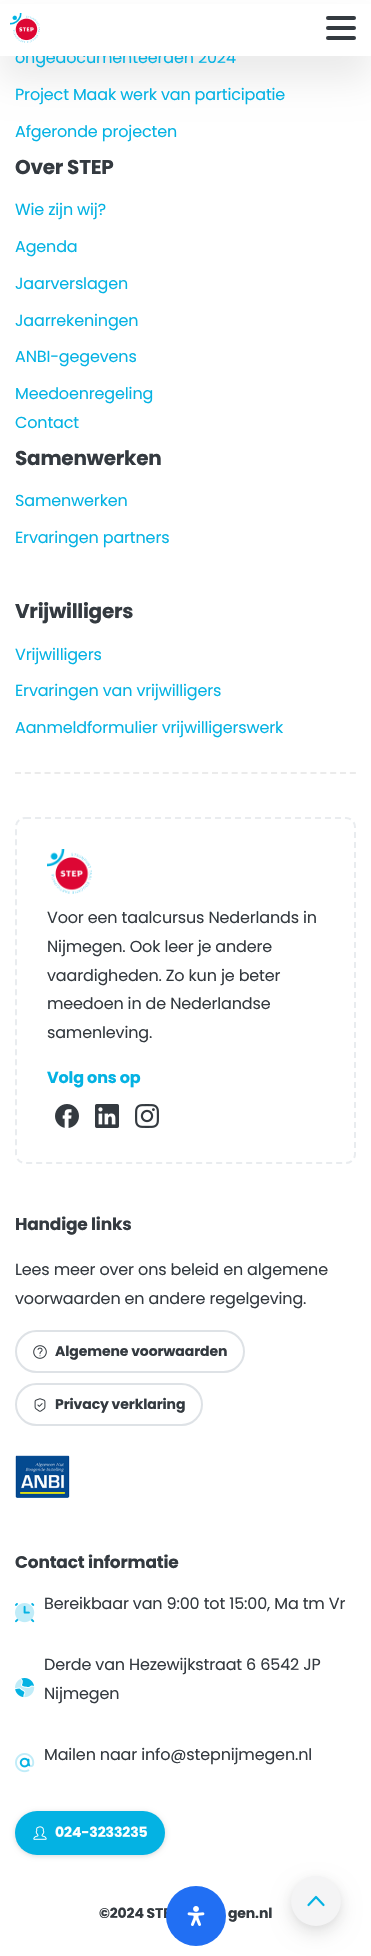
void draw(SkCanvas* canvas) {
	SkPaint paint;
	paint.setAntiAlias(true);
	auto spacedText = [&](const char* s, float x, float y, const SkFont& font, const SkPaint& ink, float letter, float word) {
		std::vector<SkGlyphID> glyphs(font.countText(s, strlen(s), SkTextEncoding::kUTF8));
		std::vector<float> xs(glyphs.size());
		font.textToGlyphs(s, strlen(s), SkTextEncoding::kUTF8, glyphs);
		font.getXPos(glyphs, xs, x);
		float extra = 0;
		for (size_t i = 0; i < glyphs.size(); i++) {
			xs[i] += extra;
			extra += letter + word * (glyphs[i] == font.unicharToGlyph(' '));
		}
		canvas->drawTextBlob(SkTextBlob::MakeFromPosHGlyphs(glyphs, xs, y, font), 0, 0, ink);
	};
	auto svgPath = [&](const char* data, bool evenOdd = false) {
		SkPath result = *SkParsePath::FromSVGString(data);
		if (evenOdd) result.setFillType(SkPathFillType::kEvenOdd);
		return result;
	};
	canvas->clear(0xffffffff);
	paint.setColor(0x14000000);
	paint.setMaskFilter(SkMaskFilter::MakeBlur(kNormal_SkBlurStyle, 17.5));
	canvas->drawRect(SkRect::MakeXYWH(0, 24, 371, 56), paint);
	paint.setMaskFilter(nullptr);
	SkFont f1(fontMgr->matchFamilyStyle("Poppins", SkFontStyle::Normal()), 16);
	f1.setSubpixel(true);
	paint.setColor(0xff04b2e3);
	spacedText("ongedocumenteerden 2024", 15, 63, f1, paint, -0.15, 0);
	paint.setColor(0xffffffff);
	canvas->drawRect(SkRect::MakeXYWH(0, 4, 371, 52), paint);
	canvas->drawImageRect(SkImages::DeferredFromEncodedData(SkData::MakeFromFileName("img1.png")), SkRect::MakeXYWH(10, 13, 30, 30), SkSamplingOptions());
	paint.setColor(0xff343a40);
	canvas->drawRoundRect(SkRect::MakeXYWH(326, 16, 30, 4), 2, 2, paint);
	canvas->drawRoundRect(SkRect::MakeXYWH(326, 26, 30, 4), 2, 2, paint);
	canvas->drawRoundRect(SkRect::MakeXYWH(326, 36, 30, 4), 2, 2, paint);
	paint.setColor(0xff04b2e3);
	spacedText("Project Maak werk van participatie", 15, 100, f1, paint, -0.15, 0);
	spacedText("Afgeronde projecten", 15, 137, f1, paint, -0.15, 0);
	SkFont f2(fontMgr->matchFamilyStyle("Poppins", SkFontStyle::Bold()), 20);
	f2.setSubpixel(true);
	paint.setColor(0xff343a40);
	spacedText("Over STEP", 15, 174, f2, paint, -0.25, 0);
	paint.setColor(0xff04b2e3);
	spacedText("Wie zijn wij?", 15, 215, f1, paint, -0.15, 0);
	spacedText("Agenda", 15, 252, f1, paint, -0.15, 0);
	spacedText("Jaarverslagen", 15, 289, f1, paint, -0.15, 0);
	spacedText("Jaarrekeningen", 15, 326, f1, paint, -0.15, 0);
	spacedText("ANBI-gegevens", 15, 362, f1, paint, -0.15, 0);
	spacedText("Meedoenregeling", 15, 399, f1, paint, -0.15, 0);
	spacedText("Contact", 15, 428, f1, paint, -0.15, 0);
	paint.setColor(0xff343a40);
	spacedText("Samenwerken", 15, 465, f2, paint, -0.25, 0);
	paint.setColor(0xff04b2e3);
	spacedText("Samenwerken", 15, 506, f1, paint, -0.15, 0);
	spacedText("Ervaringen partners", 15, 543, f1, paint, -0.15, 0);
	paint.setColor(0xff343a40);
	spacedText("Vrijwilligers", 15, 618, f2, paint, -0.25, 0);
	paint.setColor(0xff04b2e3);
	spacedText("Vrijwilligers", 15, 660, f1, paint, -0.15, 0);
	spacedText("Ervaringen van vrijwilligers", 15, 696, f1, paint, -0.15, 0);
	spacedText("Aanmeldformulier vrijwilligerswerk", 15, 733, f1, paint, -0.15, 0);
	paint.setStroke(true);
	paint.setStrokeWidth(2);
	paint.setColor(0xffebebeb);
	paint.setPathEffect(SkDashPathEffect::Make({{6, 3.85f}}, 0));
	canvas->drawPath(svgPath("M15 773H356"), paint);
	paint.setPathEffect(nullptr);
	paint.setColor(0xffe9ecef);
	paint.setPathEffect(SkDashPathEffect::Make({{6, 4}}, 0));
	canvas->drawPath(svgPath("M25 818H346C351 818 355 822 355 827V1154C355 1159 351 1163 346 1163H25C20 1163 16 1159 16 1154V827C16 822 20 818 25 818Z"), paint);
	paint.setPathEffect(nullptr);
	canvas->drawImageRect(SkImages::DeferredFromEncodedData(SkData::MakeFromFileName("img2.png")), SkRect::MakeXYWH(47, 849, 45, 45), SkSamplingOptions());
	paint.setStroke(false);
	paint.setColor(0xff343a40);
	spacedText("Voor een taalcursus Nederlands in", 47, 923, f1, paint, -0.15, 0);
	spacedText("Nijmegen. Ook leer je andere", 47, 952, f1, paint, -0.15, 0);
	spacedText("vaardigheden. Zo kun je beter", 47, 981, f1, paint, -0.15, 0);
	spacedText("meedoen in de Nederlandse", 47, 1009, f1, paint, -0.15, 0);
	spacedText("samenleving.", 47, 1038, f1, paint, -0.15, 0);
	SkFont f3(fontMgr->matchFamilyStyle("Poppins", SkFontStyle::Bold()), 16);
	f3.setSubpixel(true);
	paint.setColor(0xff04b2e3);
	spacedText("Volg ons op", 47, 1083, f3, paint, -0.15, 0);
	canvas->drawImageRect(SkImages::DeferredFromEncodedData(SkData::MakeFromFileName("img3.png")), SkRect::MakeXYWH(55, 1104, 24, 24), SkSamplingOptions());
	canvas->drawImageRect(SkImages::DeferredFromEncodedData(SkData::MakeFromFileName("img4.png")), SkRect::MakeXYWH(95, 1104, 24, 24), SkSamplingOptions());
	canvas->drawImageRect(SkImages::DeferredFromEncodedData(SkData::MakeFromFileName("img5.png")), SkRect::MakeXYWH(135, 1104, 24, 24), SkSamplingOptions());
	SkFont f4(fontMgr->matchFamilyStyle("Poppins", SkFontStyle::Bold()), 17);
	f4.setSubpixel(true);
	paint.setColor(0xff343a40);
	spacedText("Handige links", 15, 1230, f4, paint, -0.2, 0);
	spacedText("Lees meer over ons beleid en algemene", 15, 1275, f1, paint, -0.15, 0);
	spacedText("voorwaarden en andere regelgeving.", 15, 1304, f1, paint, -0.15, 0);
	paint.setStroke(true);
	paint.setColor(0xffdee2e6);
	canvas->drawRoundRect(SkRect::MakeXYWH(16, 1331, 228, 41), 20.5, 20.5, paint);
	canvas->drawImageRect(SkImages::DeferredFromEncodedData(SkData::MakeFromFileName("img6.png")), SkRect::MakeXYWH(33, 1345, 14, 14), SkSamplingOptions());
	SkFont f5(fontMgr->matchFamilyStyle("Poppins", SkFontStyle::Bold()), 14);
	f5.setSubpixel(true);
	paint.setStroke(false);
	paint.setColor(0xff343a40);
	spacedText("Algemene voorwaarden", 55, 1356, f5, paint, -0.1, 0);
	paint.setStroke(true);
	paint.setColor(0xffdee2e6);
	canvas->drawRoundRect(SkRect::MakeXYWH(16, 1384, 186, 41), 20.5, 20.5, paint);
	canvas->drawImageRect(SkImages::DeferredFromEncodedData(SkData::MakeFromFileName("img7.png")), SkRect::MakeXYWH(34, 1398, 12, 14), SkSamplingOptions());
	paint.setStroke(false);
	paint.setColor(0xff343a40);
	spacedText("Privacy verklaring", 55, 1409, f5, paint, -0.1, 0);
	canvas->drawImageRect(SkImages::DeferredFromEncodedData(SkData::MakeFromFileName("img8.png")), SkRect::MakeXYWH(15, 1455, 55, 43), SkSamplingOptions());
	spacedText("Contact informatie", 15, 1568, f4, paint, -0.2, 0);
	canvas->drawImageRect(SkImages::DeferredFromEncodedData(SkData::MakeFromFileName("img9.png")), SkRect::MakeXYWH(15, 1603, 20, 20), SkSamplingOptions());
	spacedText("Bereikbaar van 9:00 tot 15:00, Ma tm Vr", 44, 1609, f1, paint, -0.15, 0);
	canvas->drawImageRect(SkImages::DeferredFromEncodedData(SkData::MakeFromFileName("img10.png")), SkRect::MakeXYWH(15, 1678, 20, 20), SkSamplingOptions());
	spacedText("Derde van Hezewijkstraat 6 6542 JP", 44, 1670, f1, paint, -0.15, 0);
	spacedText("Nijmegen", 44, 1699, f1, paint, -0.15, 0);
	canvas->drawImageRect(SkImages::DeferredFromEncodedData(SkData::MakeFromFileName("img11.png")), SkRect::MakeXYWH(15, 1753, 20, 20), SkSamplingOptions());
	spacedText("Mailen naar info@stepnijmegen.nl", 44, 1760, f1, paint, -0.15, 0);
	paint.setColor(0x26000000);
	paint.setMaskFilter(SkMaskFilter::MakeBlur(kNormal_SkBlurStyle, 2.5));
	canvas->drawRoundRect(SkRect::MakeXYWH(15, 1812, 150, 44), 22, 22, paint);
	paint.setMaskFilter(nullptr);
	paint.setColor(0xff04b2e3);
	canvas->drawRoundRect(SkRect::MakeXYWH(15, 1811, 150, 44), 22, 22, paint);
	canvas->drawImageRect(SkImages::DeferredFromEncodedData(SkData::MakeFromFileName("img12.png")), SkRect::MakeXYWH(33, 1826, 14, 14), SkSamplingOptions());
	paint.setColor(0xffffffff);
	spacedText("024-3233235", 55, 1837, f5, paint, -0.1, 0);
	paint.setColor(0xff343a40);
	spacedText("©2024 STE", 99, 1918, f5, paint, -0.15, 0);
	spacedText("gen.nl", 228, 1918, f5, paint, -0.15, 0);
	paint.setColor(0xff216ff3);
	canvas->drawCircle(196, 1916, 30, paint);
	canvas->drawImageRect(SkImages::DeferredFromEncodedData(SkData::MakeFromFileName("img13.png")), SkRect::MakeXYWH(187, 1906, 18, 20), SkSamplingOptions());
	paint.setColor(0x1a000000);
	paint.setMaskFilter(SkMaskFilter::MakeBlur(kNormal_SkBlurStyle, 9.5));
	canvas->drawRoundRect(SkRect::MakeXYWH(291, 1884, 50, 50), 25, 25, paint);
	paint.setMaskFilter(nullptr);
	paint.setColor(0x0d000000);
	paint.setMaskFilter(SkMaskFilter::MakeBlur(kNormal_SkBlurStyle, 3));
	canvas->drawRoundRect(SkRect::MakeXYWH(291, 1878, 50, 50), 25, 25, paint);
	paint.setMaskFilter(nullptr);
	paint.setColor(0xfff4f4f5);
	canvas->drawCircle(316, 1901, 25, paint);
	paint.setStroke(true);
	paint.setStrokeWidth(2.2);
	paint.setStrokeCap(SkPaint::kRound_Cap);
	paint.setStrokeJoin(SkPaint::kRound_Join);
	paint.setColor(0xff04b2e3);
	canvas->drawPath(svgPath("M308.5 1905L316 1897L323.5 1905"), paint);
}
